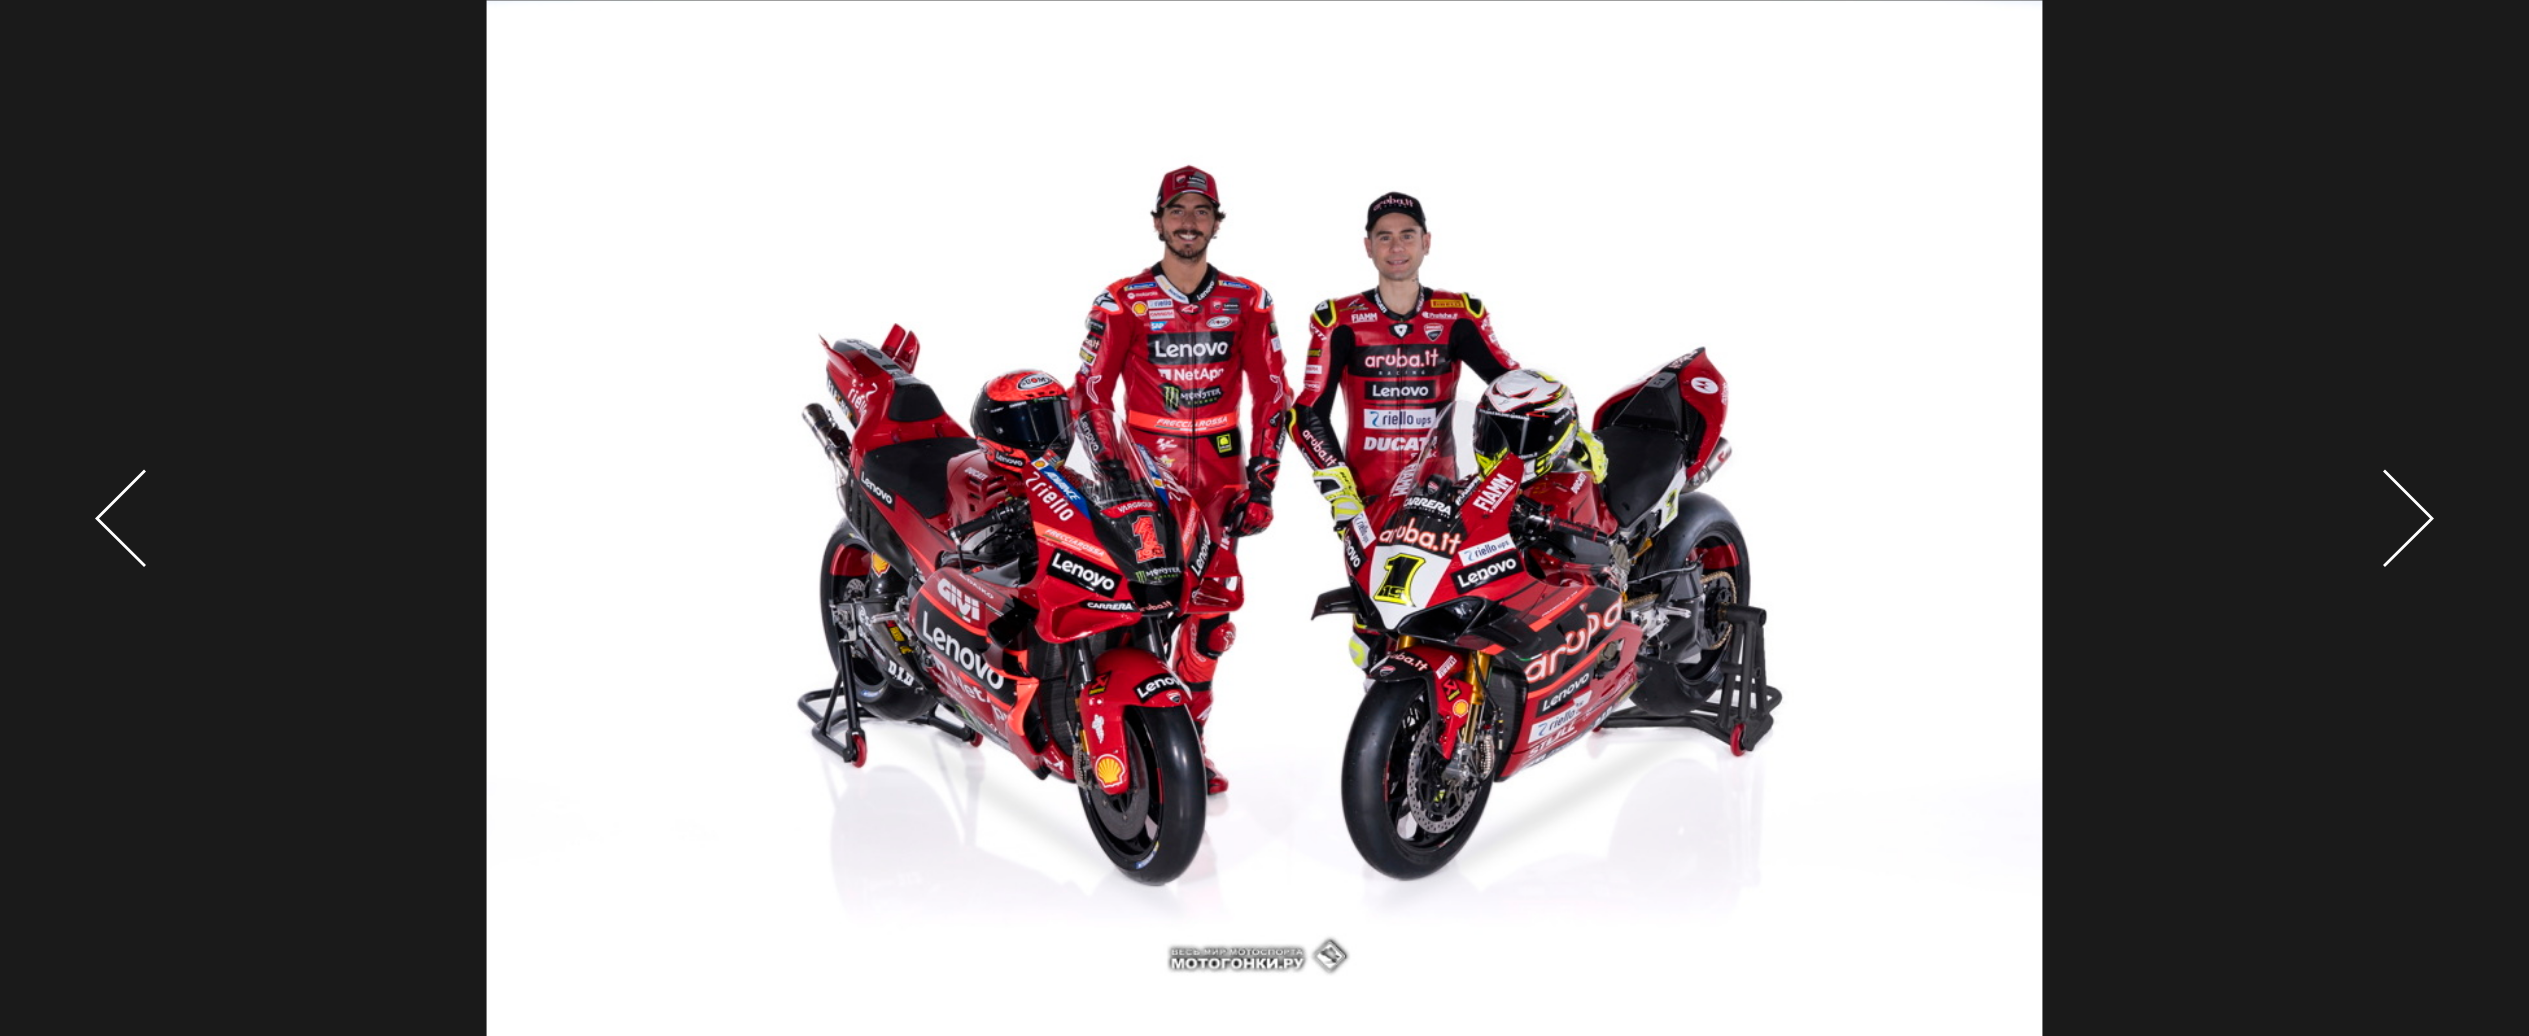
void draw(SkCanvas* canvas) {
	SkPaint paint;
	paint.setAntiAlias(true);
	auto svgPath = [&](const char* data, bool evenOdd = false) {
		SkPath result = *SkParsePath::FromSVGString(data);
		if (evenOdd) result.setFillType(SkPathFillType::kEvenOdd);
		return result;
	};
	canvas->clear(0xff1a1a1a);
	paint.setStroke(true);
	paint.setStrokeWidth(2.8);
	paint.setColor(0xffffffff);
	canvas->drawPath(svgPath("M145 470.5L97 518.5L145 566"), paint);
	canvas->drawImageRect(SkImages::DeferredFromEncodedData(SkData::MakeFromFileName("img1.png")), SkRect::MakeXYWH(486, 0, 1557, 1036), SkSamplingOptions());
	canvas->drawPath(svgPath("M2384 470.5L2432 518.5L2384 566"), paint);
}
